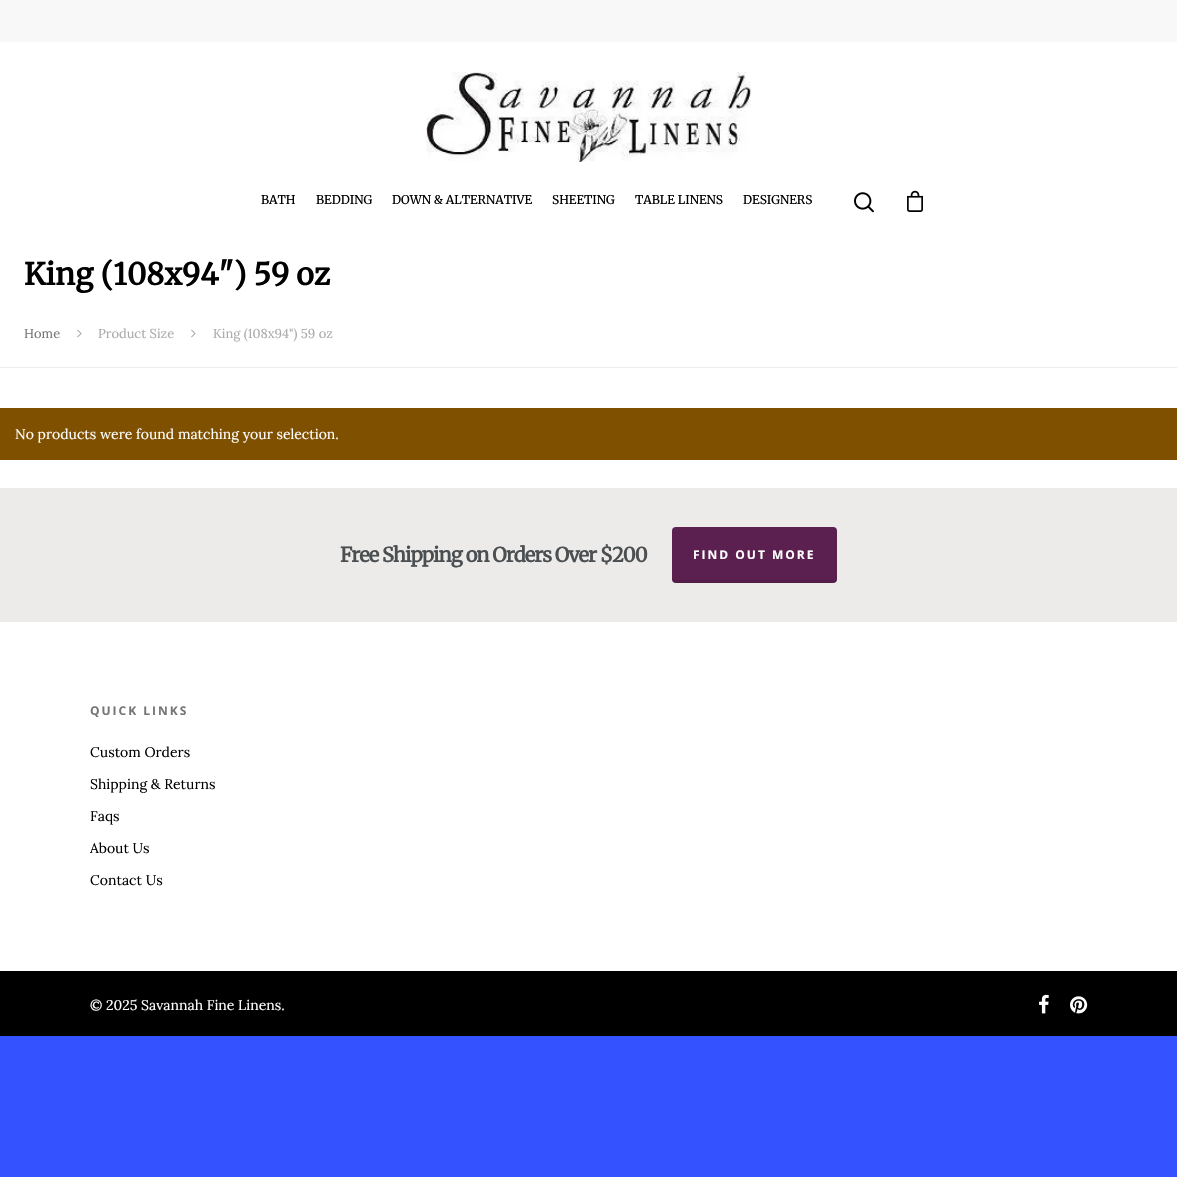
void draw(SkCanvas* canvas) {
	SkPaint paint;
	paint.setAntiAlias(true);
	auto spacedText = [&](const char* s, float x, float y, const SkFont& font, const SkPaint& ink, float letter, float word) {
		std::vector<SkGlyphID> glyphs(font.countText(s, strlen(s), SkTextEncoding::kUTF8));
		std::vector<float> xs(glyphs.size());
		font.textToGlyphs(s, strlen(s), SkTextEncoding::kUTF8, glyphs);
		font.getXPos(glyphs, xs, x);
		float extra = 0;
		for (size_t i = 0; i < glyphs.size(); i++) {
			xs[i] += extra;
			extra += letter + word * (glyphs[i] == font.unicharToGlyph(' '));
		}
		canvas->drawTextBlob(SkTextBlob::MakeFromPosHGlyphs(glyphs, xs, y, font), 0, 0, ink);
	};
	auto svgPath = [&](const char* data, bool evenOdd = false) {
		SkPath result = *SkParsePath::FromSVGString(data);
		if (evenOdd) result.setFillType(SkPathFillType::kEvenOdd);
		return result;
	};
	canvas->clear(0xff3452ff);
	paint.setColor(0xffffffff);
	canvas->drawRect(SkRect::MakeXYWH(0, 42, 1177, 929), paint);
	paint.setColor(0xfff8f8f8);
	canvas->drawRect(SkRect::MakeXYWH(0, 0, 1177, 42), paint);
	canvas->drawImageRect(SkImages::DeferredFromEncodedData(SkData::MakeFromFileName("img1.png")), SkRect::MakeXYWH(426, 72, 325, 90), SkSamplingOptions());
	SkFont f1(fontMgr->matchFamilyStyle("Merriweather", SkFontStyle(300, SkFontStyle::kNormal_Width, SkFontStyle::kUpright_Slant)), 12);
	f1.setSubpixel(true);
	paint.setColor(0xff000000);
	canvas->drawString("BATH", 261, 204, f1, paint);
	canvas->drawString("BEDDING", 316, 204, f1, paint);
	canvas->drawString("DOWN & ALTERNATIVE", 392, 204, f1, paint);
	canvas->drawString("SHEETING", 552, 204, f1, paint);
	canvas->drawString("TABLE LINENS", 635, 204, f1, paint);
	canvas->drawString("DESIGNERS", 743, 204, f1, paint);
	canvas->drawImageRect(SkImages::DeferredFromEncodedData(SkData::MakeFromFileName("img2.png")), SkRect::MakeXYWH(854, 192, 20, 21), SkSamplingOptions());
	canvas->drawImageRect(SkImages::DeferredFromEncodedData(SkData::MakeFromFileName("img3.png")), SkRect::MakeXYWH(907, 190, 16, 22), SkSamplingOptions());
	SkFont f2(fontMgr->matchFamilyStyle("Merriweather", SkFontStyle::Bold()), 30);
	f2.setSubpixel(true);
	canvas->drawString("King (108x94\") 59 oz", 24, 285, f2, paint);
	paint.setColor(0xffededed);
	canvas->drawRect(SkRect::MakeXYWH(0, 367, 1177, 1), paint);
	SkFont f3(fontMgr->matchFamilyStyle("Lora", SkFontStyle::Normal()), 12.9);
	f3.setSubpixel(true);
	paint.setColor(0xff767676);
	canvas->drawString("Home", 24, 338, f3, paint);
	canvas->drawImageRect(SkImages::DeferredFromEncodedData(SkData::MakeFromFileName("img4.png")), SkRect::MakeXYWH(77, 329, 5, 9), SkSamplingOptions());
	paint.setColor(0xffaaaaaa);
	canvas->drawString("Product Size", 98, 338, f3, paint);
	canvas->drawImageRect(SkImages::DeferredFromEncodedData(SkData::MakeFromFileName("img4.png")), SkRect::MakeXYWH(191, 329, 5, 9), SkSamplingOptions());
	canvas->drawString("King (108x94\") 59 oz", 213, 338, f3, paint);
	paint.setColor(0xff7f5000);
	canvas->drawRect(SkRect::MakeXYWH(0, 408, 1177, 52), paint);
	SkFont f4(fontMgr->matchFamilyStyle("Lora", SkFontStyle::Normal()), 14);
	f4.setSubpixel(true);
	paint.setColor(0xffffffff);
	canvas->drawString("No products were found matching your selection.", 15, 439, f4, paint);
	paint.setColor(0xffecebe9);
	canvas->drawRect(SkRect::MakeXYWH(0, 488, 1177, 134), paint);
	SkFont f5(fontMgr->matchFamilyStyle("Merriweather", SkFontStyle::Bold()), 20);
	f5.setSubpixel(true);
	paint.setColor(0xff4b4f52);
	spacedText("Free Shipping on Orders Over $200", 340, 562, f5, paint, -1, 0);
	paint.setColor(0xff5b204f);
	canvas->drawRoundRect(SkRect::MakeXYWH(672, 527, 165, 56), 4, 4, paint);
	paint.setColor(0x1a000000);
	canvas->drawPath(svgPath("M672 576V579C672 581 674 583 676 583H833C835 583 837 581 837 579V576C837 578 835 580 833 580H676C674 580 672 578 672 576Z"), paint);
	SkFont f6(fontMgr->matchFamilyStyle("Open Sans", SkFontStyle::Bold()), 12);
	f6.setSubpixel(true);
	paint.setColor(0xffffffff);
	spacedText("FIND OUT MORE", 693, 559, f6, paint, 2, 0);
	paint.setColor(0xff767676);
	spacedText("QUICK LINKS", 90, 715, f6, paint, 2, 0);
	paint.setColor(0xff000000);
	canvas->drawString("Custom Orders", 90, 757, f4, paint);
	canvas->drawString("Shipping & Returns", 90, 789, f4, paint);
	canvas->drawString("Faqs", 90, 821, f4, paint);
	canvas->drawString("About Us", 90, 853, f4, paint);
	canvas->drawString("Contact Us", 90, 885, f4, paint);
	canvas->drawRect(SkRect::MakeXYWH(0, 971, 1177, 65), paint);
	paint.setColor(0xffffffff);
	canvas->drawString("© 2025 Savannah Fine Linens.", 90, 1010, f4, paint);
	canvas->drawImageRect(SkImages::DeferredFromEncodedData(SkData::MakeFromFileName("img5.png")), SkRect::MakeXYWH(1039, 994, 10, 20), SkSamplingOptions());
	canvas->drawImageRect(SkImages::DeferredFromEncodedData(SkData::MakeFromFileName("img6.png")), SkRect::MakeXYWH(1070, 996, 18, 18), SkSamplingOptions());
}
